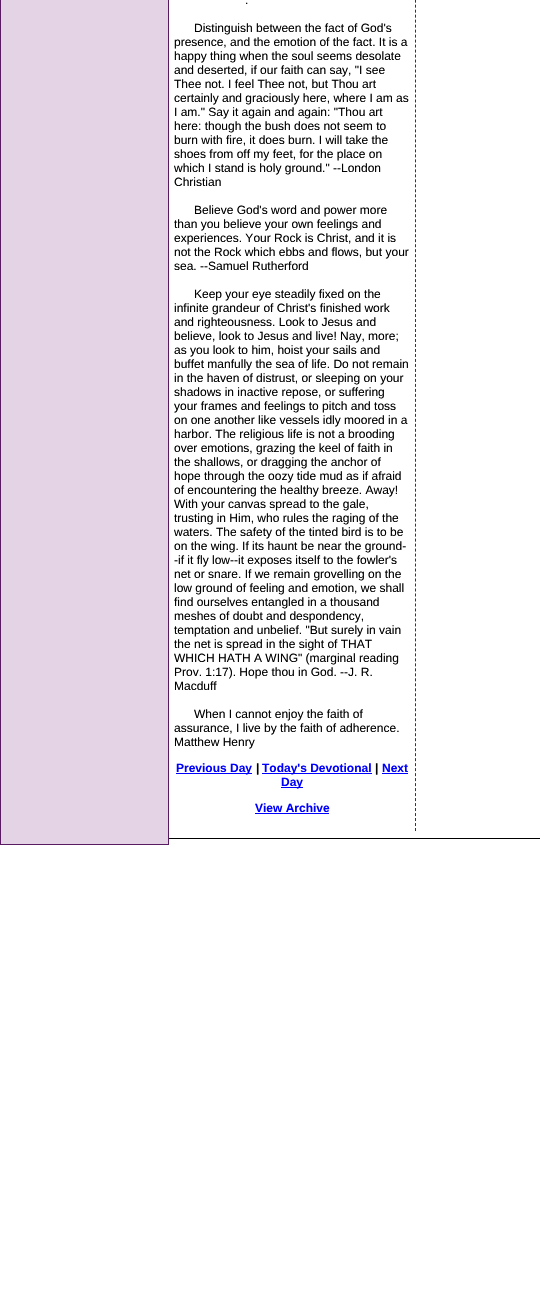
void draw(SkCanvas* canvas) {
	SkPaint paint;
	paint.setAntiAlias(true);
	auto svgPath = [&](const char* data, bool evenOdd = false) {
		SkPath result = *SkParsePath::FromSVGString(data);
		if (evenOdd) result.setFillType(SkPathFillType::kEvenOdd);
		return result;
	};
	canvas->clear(0xffffffff);
	paint.setColor(0xffe3d3e5);
	canvas->drawRect(SkRect::MakeXYWH(1, 0, 167, 844), paint);
	paint.setColor(0xff581b61);
	canvas->drawRect(SkRect::MakeXYWH(168, 0, 1, 845), paint);
	canvas->drawRect(SkRect::MakeXYWH(0, 844, 169, 1), paint);
	canvas->drawRect(SkRect::MakeXYWH(0, 0, 1, 845), paint);
	SkFont f1(fontMgr->matchFamilyStyle("Liberation Sans", SkFontStyle::Normal()), 12);
	f1.setSubpixel(true);
	paint.setColor(0xff000000);
	canvas->drawString(".", 245, 4, f1, paint);
	canvas->drawString("Distinguish between the fact of God's", 194, 32, f1, paint);
	canvas->drawString("presence, and the emotion of the fact. It is a", 174, 46, f1, paint);
	canvas->drawString("happy thing when the soul seems desolate", 174, 60, f1, paint);
	canvas->drawString("and deserted, if our faith can say, \"I see", 174, 74, f1, paint);
	canvas->drawString("Thee not. I feel Thee not, but Thou art", 174, 88, f1, paint);
	canvas->drawString("certainly and graciously here, where I am as", 174, 102, f1, paint);
	canvas->drawString("I am.\" Say it again and again: \"Thou art", 174, 116, f1, paint);
	canvas->drawString("here: though the bush does not seem to", 174, 130, f1, paint);
	canvas->drawString("burn with fire, it does burn. I will take the", 174, 144, f1, paint);
	canvas->drawString("shoes from off my feet, for the place on", 174, 158, f1, paint);
	canvas->drawString("which I stand is holy ground.\" --London", 174, 172, f1, paint);
	canvas->drawString("Christian", 174, 186, f1, paint);
	canvas->drawString("Believe God's word and power more", 194, 214, f1, paint);
	canvas->drawString("than you believe your own feelings and", 174, 228, f1, paint);
	canvas->drawString("experiences. Your Rock is Christ, and it is", 174, 242, f1, paint);
	canvas->drawString("not the Rock which ebbs and flows, but your", 174, 256, f1, paint);
	canvas->drawString("sea. --Samuel Rutherford", 174, 270, f1, paint);
	canvas->drawString("Keep your eye steadily fixed on the", 194, 298, f1, paint);
	canvas->drawString("infinite grandeur of Christ's finished work", 174, 312, f1, paint);
	canvas->drawString("and righteousness. Look to Jesus and", 174, 326, f1, paint);
	canvas->drawString("believe, look to Jesus and live! Nay, more;", 174, 340, f1, paint);
	canvas->drawString("as you look to him, hoist your sails and", 174, 354, f1, paint);
	canvas->drawString("buffet manfully the sea of life. Do not remain", 174, 368, f1, paint);
	canvas->drawString("in the haven of distrust, or sleeping on your", 174, 382, f1, paint);
	canvas->drawString("shadows in inactive repose, or suffering", 174, 396, f1, paint);
	canvas->drawString("your frames and feelings to pitch and toss", 174, 410, f1, paint);
	canvas->drawString("on one another like vessels idly moored in a", 174, 424, f1, paint);
	canvas->drawString("harbor. The religious life is not a brooding", 174, 438, f1, paint);
	canvas->drawString("over emotions, grazing the keel of faith in", 174, 452, f1, paint);
	canvas->drawString("the shallows, or dragging the anchor of", 174, 466, f1, paint);
	canvas->drawString("hope through the oozy tide mud as if afraid", 174, 480, f1, paint);
	canvas->drawString("of encountering the healthy breeze. Away!", 174, 494, f1, paint);
	canvas->drawString("With your canvas spread to the gale,", 174, 508, f1, paint);
	canvas->drawString("trusting in Him, who rules the raging of the", 174, 522, f1, paint);
	canvas->drawString("waters. The safety of the tinted bird is to be", 174, 536, f1, paint);
	canvas->drawString("on the wing. If its haunt be near the ground-", 174, 550, f1, paint);
	canvas->drawString("-if it fly low--it exposes itself to the fowler's", 174, 564, f1, paint);
	canvas->drawString("net or snare. If we remain grovelling on the", 174, 578, f1, paint);
	canvas->drawString("low ground of feeling and emotion, we shall", 174, 592, f1, paint);
	canvas->drawString("find ourselves entangled in a thousand", 174, 606, f1, paint);
	canvas->drawString("meshes of doubt and despondency,", 174, 620, f1, paint);
	canvas->drawString("temptation and unbelief. \"But surely in vain", 174, 634, f1, paint);
	canvas->drawString("the net is spread in the sight of THAT", 174, 648, f1, paint);
	canvas->drawString("WHICH HATH A WING\" (marginal reading", 174, 662, f1, paint);
	canvas->drawString("Prov. 1:17). Hope thou in God. --J. R.", 174, 676, f1, paint);
	canvas->drawString("Macduff", 174, 690, f1, paint);
	canvas->drawString("When I cannot enjoy the faith of", 194, 718, f1, paint);
	canvas->drawString("assurance, I live by the faith of adherence.", 174, 732, f1, paint);
	canvas->drawString("Matthew Henry", 174, 746, f1, paint);
	paint.setColor(0xff0000ff);
	canvas->drawRect(SkRect::MakeXYWH(176, 773, 76, 1), paint);
	SkFont f2(fontMgr->matchFamilyStyle("Liberation Sans", SkFontStyle::Bold()), 12);
	f2.setSubpixel(true);
	canvas->drawString("Previous Day", 176, 772, f2, paint);
	paint.setColor(0xff000000);
	canvas->drawString("|", 256, 772, f2, paint);
	paint.setColor(0xff0000ff);
	canvas->drawRect(SkRect::MakeXYWH(262, 773, 110, 1), paint);
	canvas->drawString("Today's Devotional", 262, 772, f2, paint);
	paint.setColor(0xff000000);
	canvas->drawString("|", 375, 772, f2, paint);
	paint.setColor(0xff0000ff);
	canvas->drawString("Next", 382, 772, f2, paint);
	canvas->drawRect(SkRect::MakeXYWH(382, 773, 26, 1), paint);
	canvas->drawRect(SkRect::MakeXYWH(281, 787, 22, 1), paint);
	canvas->drawString("Day", 281, 786, f2, paint);
	canvas->drawString("View Archive", 255, 812, f2, paint);
	canvas->drawRect(SkRect::MakeXYWH(255, 813, 74, 1), paint);
	paint.setStroke(true);
	paint.setStrokeWidth(1);
	paint.setColor(0xff581b61);
	paint.setPathEffect(SkDashPathEffect::Make({{3, 1.99f}}, 0));
	canvas->drawPath(svgPath("M415.5-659V832"), paint);
	paint.setPathEffect(nullptr);
	paint.setStroke(false);
	paint.setColor(0xff000000);
	canvas->drawRect(SkRect::MakeXYWH(169, 838, 371, 1), paint);
}
